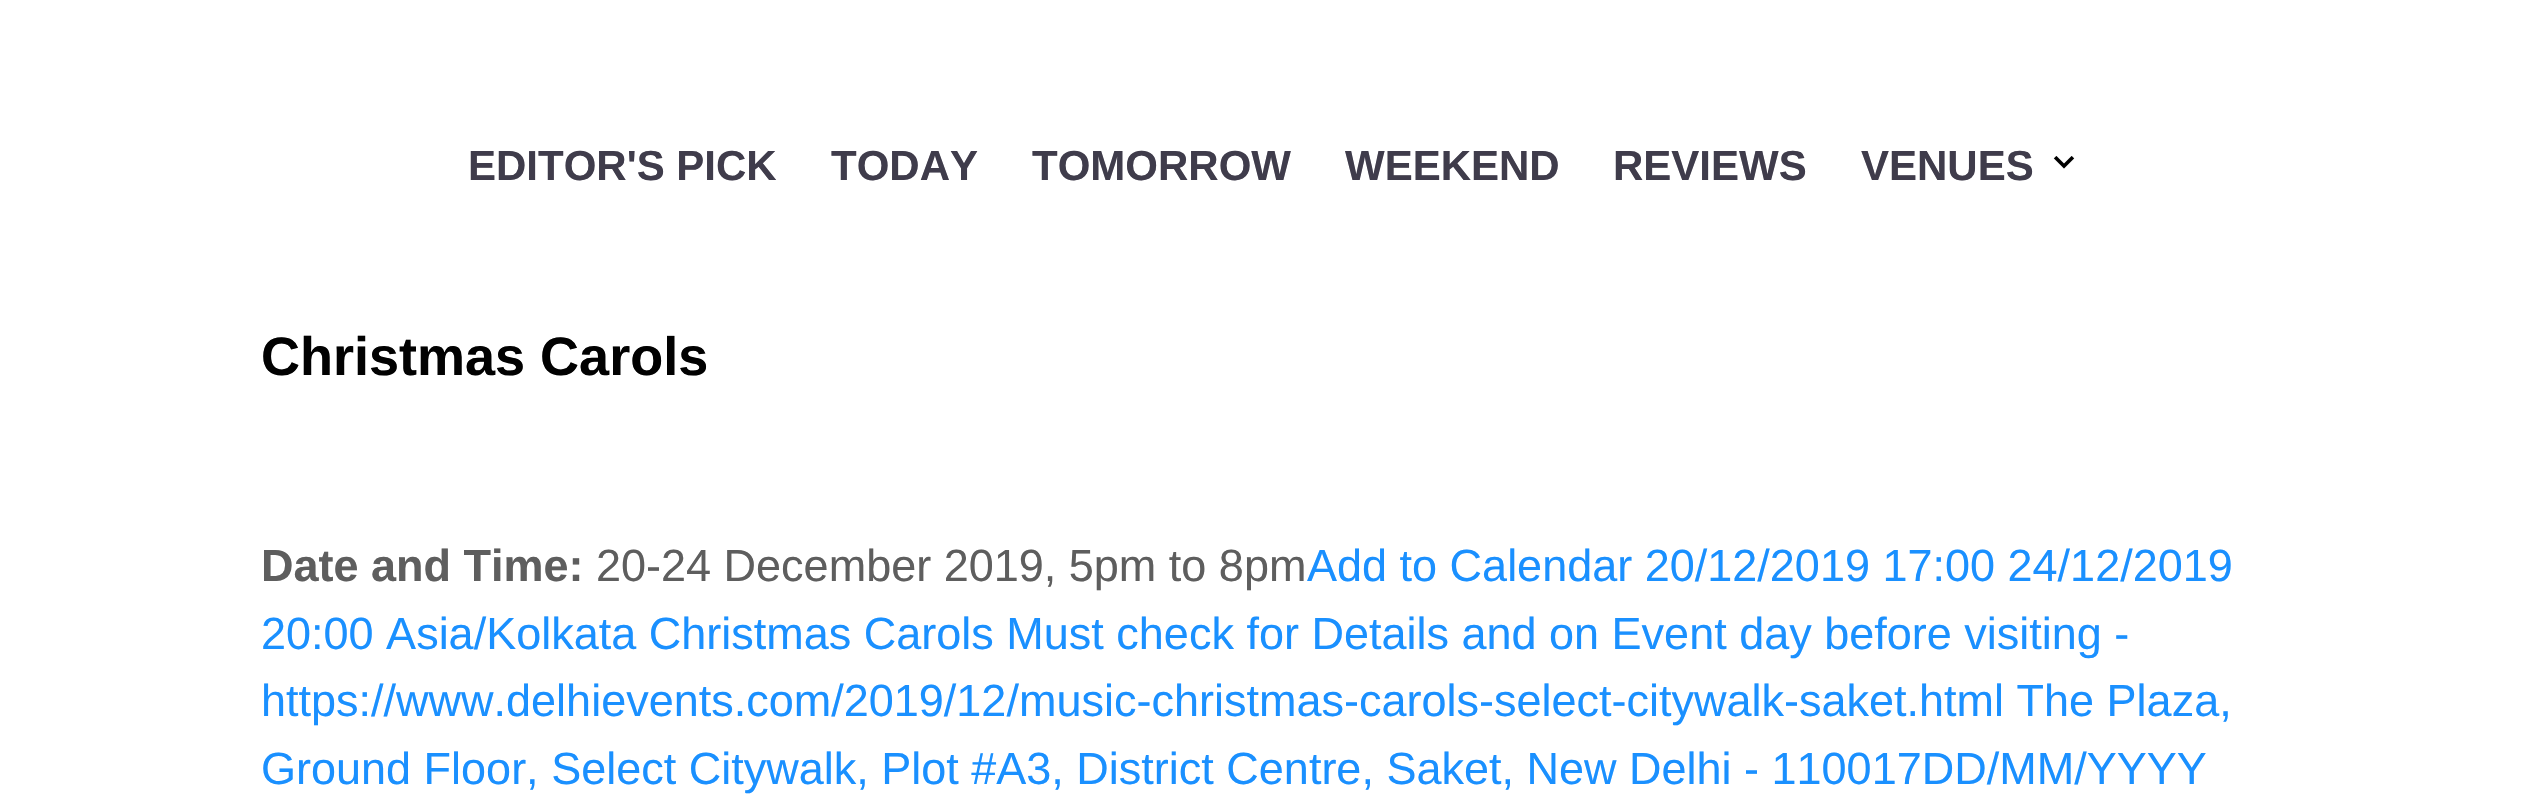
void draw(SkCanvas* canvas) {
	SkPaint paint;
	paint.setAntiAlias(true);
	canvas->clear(0xffffffff);
	SkFont f1(fontMgr->matchFamilyStyle("Liberation Sans", SkFontStyle::Bold()), 42);
	f1.setSubpixel(true);
	paint.setColor(0xff3f3c4b);
	canvas->drawString("EDITOR'S PICK", 468, 180, f1, paint);
	canvas->drawString("TODAY", 831, 180, f1, paint);
	canvas->drawString("TOMORROW", 1032, 180, f1, paint);
	canvas->drawString("WEEKEND", 1345, 180, f1, paint);
	canvas->drawString("REVIEWS", 1613, 180, f1, paint);
	canvas->drawString("VENUES", 1861, 180, f1, paint);
	canvas->drawImageRect(SkImages::DeferredFromEncodedData(SkData::MakeFromFileName("img1.png")), SkRect::MakeXYWH(2053, 156, 22, 13), SkSamplingOptions());
	SkFont f2(fontMgr->matchFamilyStyle("Liberation Sans", SkFontStyle::Bold()), 54);
	f2.setSubpixel(true);
	paint.setColor(0xff010101);
	canvas->drawString("Christmas Carols", 261, 375, f2, paint);
	SkFont f3(fontMgr->matchFamilyStyle("Liberation Sans", SkFontStyle::Bold()), 45);
	f3.setSubpixel(true);
	paint.setColor(0xff5e5e5e);
	canvas->drawString("Date and Time:", 261, 581, f3, paint);
	SkFont f4(fontMgr->matchFamilyStyle("Liberation Sans", SkFontStyle::Normal()), 45);
	f4.setSubpixel(true);
	canvas->drawString("20-24 December 2019, 5pm to 8pm", 596, 581, f4, paint);
	paint.setColor(0xff1a90ff);
	canvas->drawString("Add to Calendar 20/12/2019 17:00 24/12/2019", 1307, 581, f4, paint);
	canvas->drawString("20:00 Asia/Kolkata Christmas Carols Must check for Details and on Event day before visiting -", 261, 649, f4, paint);
	canvas->drawString("https://www.delhievents.com/2019/12/music-christmas-carols-select-citywalk-saket.html The Plaza,", 261, 716, f4, paint);
	canvas->drawString("Ground Floor, Select Citywalk, Plot #A3, District Centre, Saket, New Delhi - 110017DD/MM/YYYY", 261, 784, f4, paint);
}
